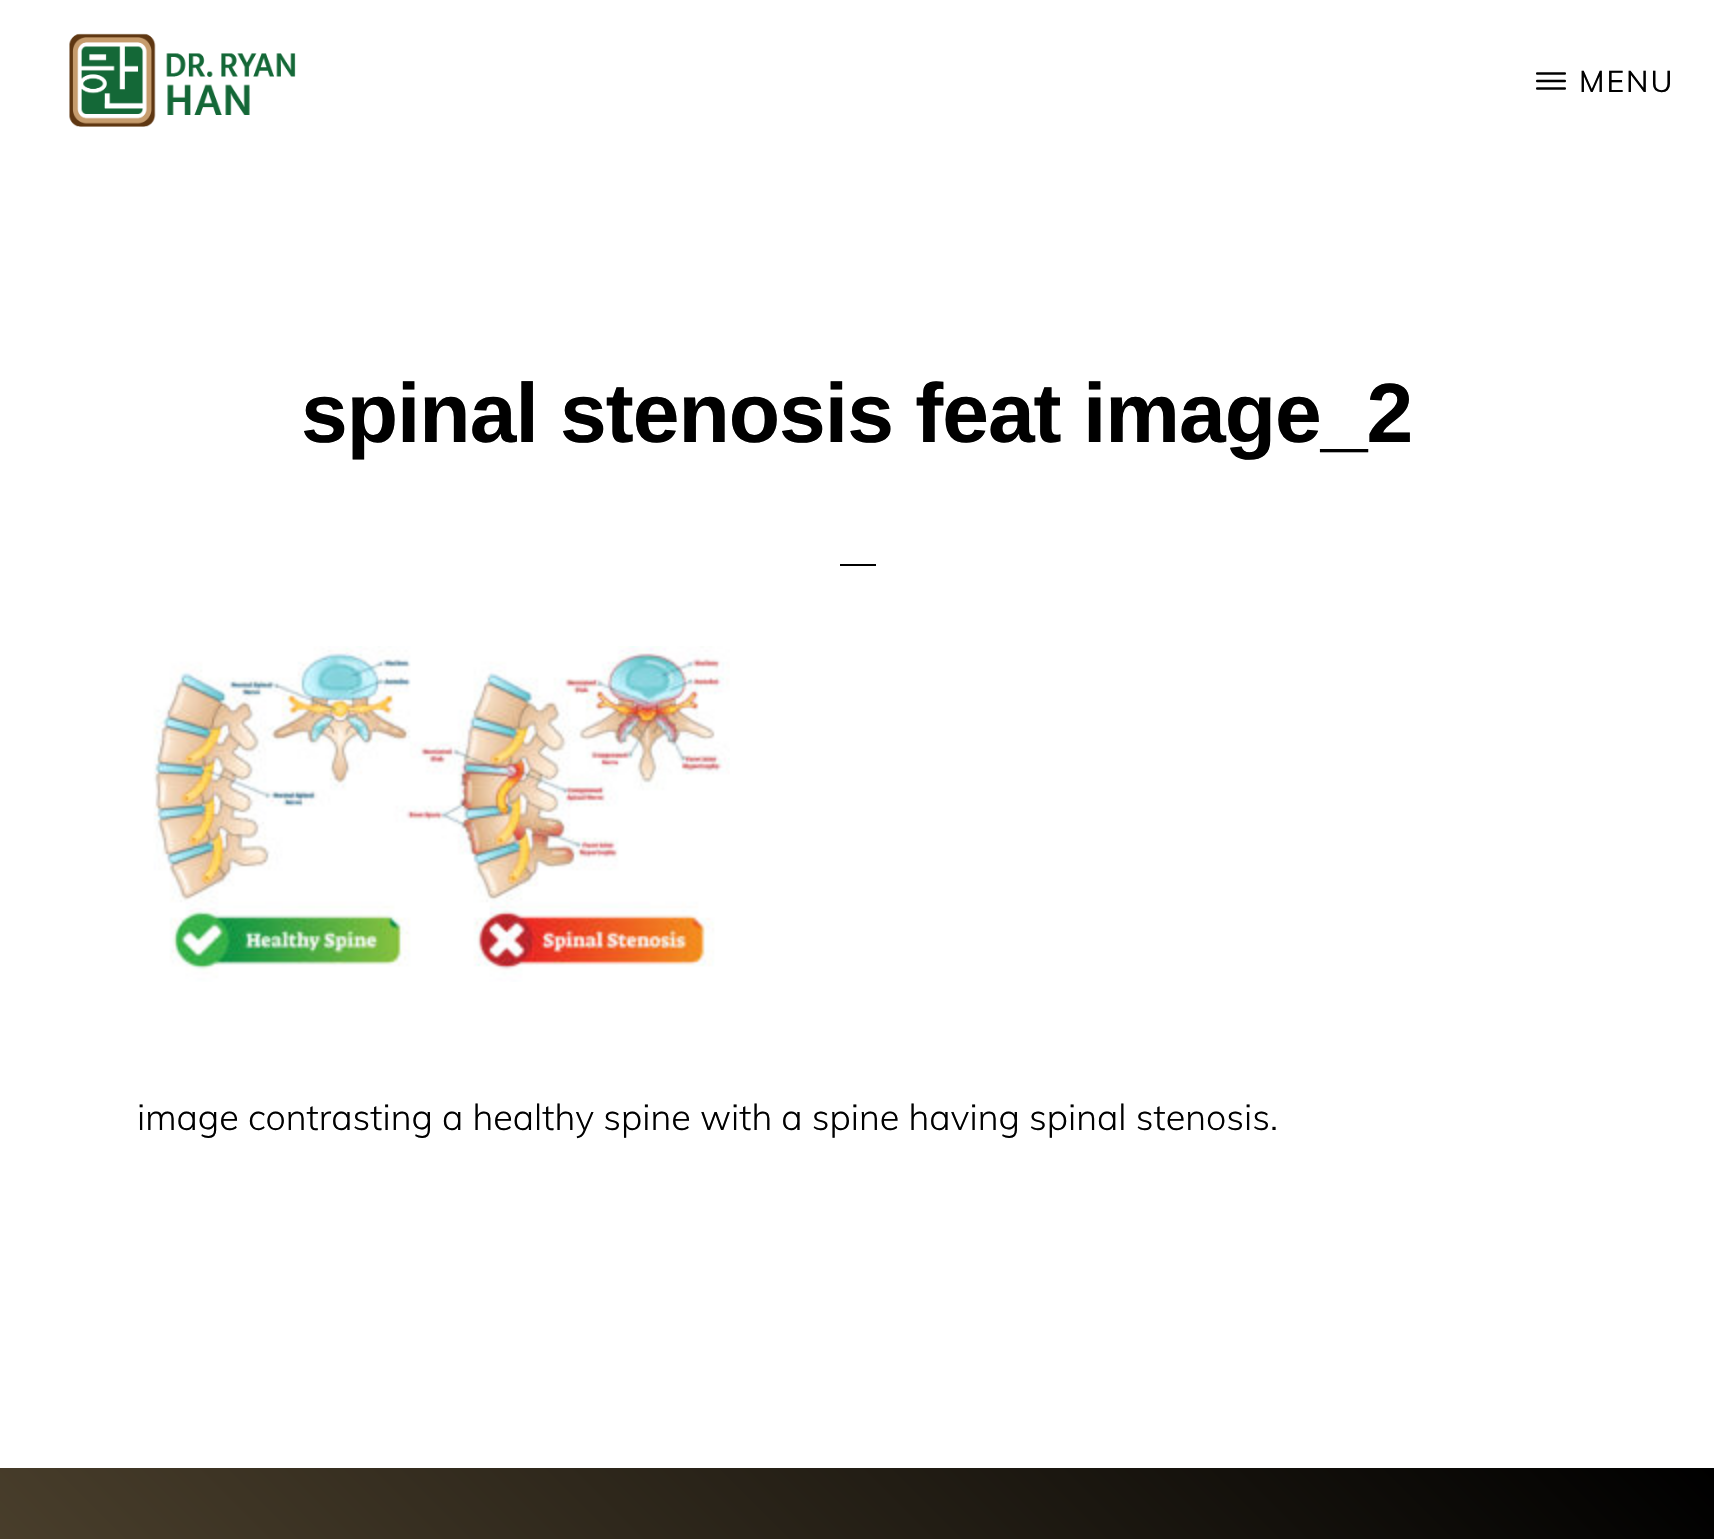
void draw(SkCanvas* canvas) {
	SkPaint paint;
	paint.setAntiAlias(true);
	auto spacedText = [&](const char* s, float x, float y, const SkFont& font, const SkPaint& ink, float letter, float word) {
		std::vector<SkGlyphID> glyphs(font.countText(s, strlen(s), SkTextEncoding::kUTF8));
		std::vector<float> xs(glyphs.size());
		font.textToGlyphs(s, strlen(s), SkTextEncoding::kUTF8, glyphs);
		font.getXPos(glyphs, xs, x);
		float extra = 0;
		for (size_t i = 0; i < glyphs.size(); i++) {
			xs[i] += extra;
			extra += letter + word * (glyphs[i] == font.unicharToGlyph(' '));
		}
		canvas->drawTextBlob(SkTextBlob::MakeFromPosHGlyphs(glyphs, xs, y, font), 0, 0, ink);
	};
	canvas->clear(0xffffffff);
	canvas->drawImageRect(SkImages::DeferredFromEncodedData(SkData::MakeFromFileName("img1.png")), SkRect::MakeXYWH(69, 33, 227, 94), SkSamplingOptions());
	canvas->drawImageRect(SkImages::DeferredFromEncodedData(SkData::MakeFromFileName("img2.png")), SkRect::MakeXYWH(1536, 72, 30, 18), SkSamplingOptions());
	SkFont f1(fontMgr->matchFamilyStyle("Muli", SkFontStyle::Normal()), 30);
	f1.setSubpixel(true);
	paint.setColor(0xff000000);
	spacedText("MENU", 1579, 92, f1, paint, 2, 0);
	SkFont f2(fontMgr->matchFamilyStyle("Liberation Sans", SkFontStyle::Bold()), 84);
	f2.setSubpixel(true);
	spacedText("spinal stenosis feat image_2", 301, 442, f2, paint, -1, 0);
	canvas->drawRect(SkRect::MakeXYWH(840, 564, 36, 2), paint);
	canvas->drawImageRect(SkImages::DeferredFromEncodedData(SkData::MakeFromFileName("img3.png")), SkRect::MakeXYWH(153, 646, 577, 336), SkSamplingOptions());
	SkFont f3(fontMgr->matchFamilyStyle("Muli", SkFontStyle(300, SkFontStyle::kNormal_Width, SkFontStyle::kUpright_Slant)), 36);
	f3.setSubpixel(true);
	canvas->drawString("image contrasting a healthy spine with a spine having spinal stenosis.", 137, 1130, f3, paint);
	{
		const SkColor colors[] = {0xff514530, 0xff000000};
		const float stops[] = {0, 1};
		const SkPoint ends[] = {{359, 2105}, {1355, 1109}};
		paint.setShader(SkGradientShader::MakeLinear(ends, colors, stops, 2, SkTileMode::kClamp));
		paint.setAlpha(255);
	}
	canvas->drawRect(SkRect::MakeXYWH(0, 1468, 1714, 71), paint);
}
